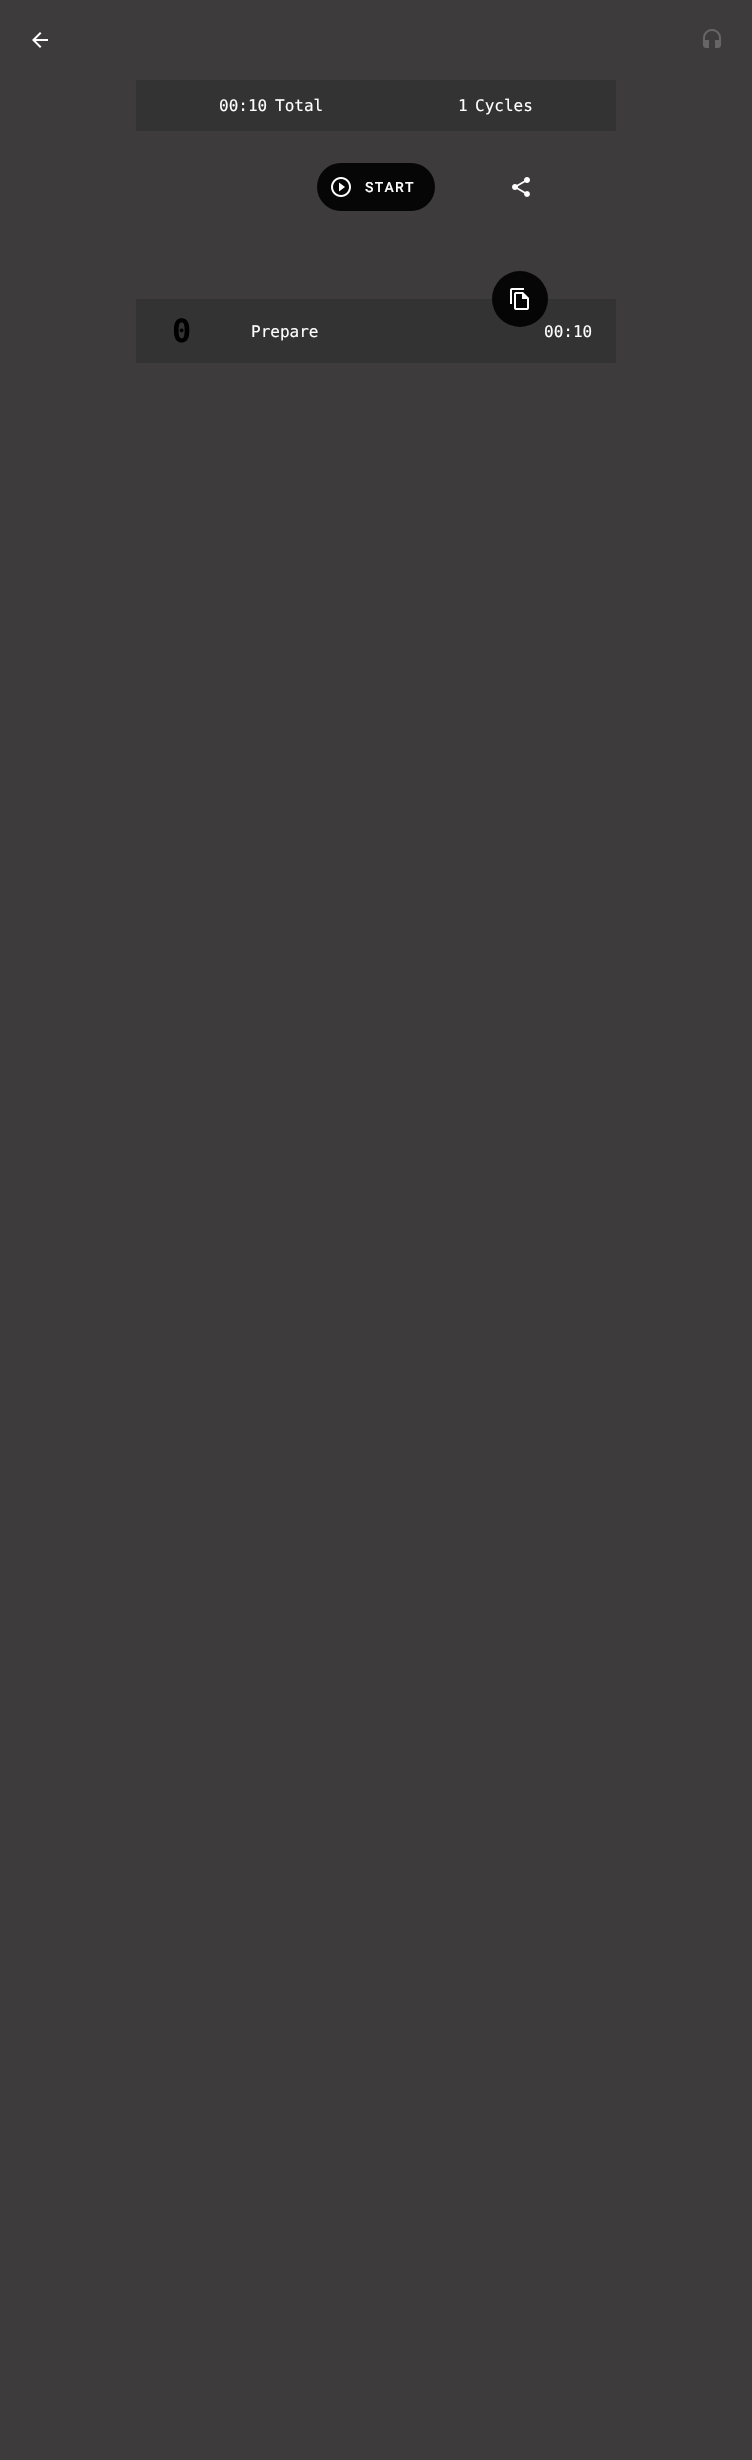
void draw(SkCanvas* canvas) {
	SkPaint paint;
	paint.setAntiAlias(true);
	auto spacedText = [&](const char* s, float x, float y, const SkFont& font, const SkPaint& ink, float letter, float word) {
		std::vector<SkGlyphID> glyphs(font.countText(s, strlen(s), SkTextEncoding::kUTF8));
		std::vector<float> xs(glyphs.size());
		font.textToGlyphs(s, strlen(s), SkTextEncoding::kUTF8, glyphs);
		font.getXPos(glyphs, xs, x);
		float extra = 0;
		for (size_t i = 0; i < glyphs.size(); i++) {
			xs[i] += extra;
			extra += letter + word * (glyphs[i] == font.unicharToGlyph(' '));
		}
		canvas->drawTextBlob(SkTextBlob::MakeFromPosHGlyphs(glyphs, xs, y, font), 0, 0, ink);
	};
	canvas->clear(0xff3d3b3c);
	canvas->drawImageRect(SkImages::DeferredFromEncodedData(SkData::MakeFromFileName("img1.png")), SkRect::MakeXYWH(32, 32, 16, 16), SkSamplingOptions());
	canvas->drawImageRect(SkImages::DeferredFromEncodedData(SkData::MakeFromFileName("img2.png")), SkRect::MakeXYWH(703, 29, 18, 19), SkSamplingOptions());
	paint.setColor(0xff333333);
	canvas->drawRect(SkRect::MakeXYWH(136, 80, 480, 51), paint);
	SkFont f1(fontMgr->matchFamilyStyle("DejaVu Sans Mono", SkFontStyle::Normal()), 16);
	f1.setSubpixel(true);
	paint.setColor(0xffffffff);
	canvas->drawString("00:10", 219, 111, f1, paint);
	canvas->drawString("Total", 275, 111, f1, paint);
	canvas->drawString("1", 458, 111, f1, paint);
	canvas->drawString("Cycles", 475, 111, f1, paint);
	paint.setColor(0xe6000000);
	canvas->drawRoundRect(SkRect::MakeXYWH(317, 163, 118, 48), 24, 24, paint);
	canvas->drawImageRect(SkImages::DeferredFromEncodedData(SkData::MakeFromFileName("img3.png")), SkRect::MakeXYWH(331, 177, 20, 20), SkSamplingOptions());
	SkFont f2(fontMgr->matchFamilyStyle("Roboto", SkFontStyle(500, SkFontStyle::kNormal_Width, SkFontStyle::kUpright_Slant)), 14);
	f2.setSubpixel(true);
	paint.setColor(0xffffffff);
	spacedText("START", 365, 192, f2, paint, 1.25, 0);
	canvas->drawImageRect(SkImages::DeferredFromEncodedData(SkData::MakeFromFileName("img4.png")), SkRect::MakeXYWH(512, 177, 18, 20), SkSamplingOptions());
	paint.setColor(0xff333333);
	canvas->drawRect(SkRect::MakeXYWH(136, 299, 480, 64), paint);
	paint.setColor(0xffffffff);
	canvas->drawString("00:10", 544, 337, f1, paint);
	paint.setColor(0xe6000000);
	canvas->drawCircle(520, 299, 28, paint);
	canvas->drawImageRect(SkImages::DeferredFromEncodedData(SkData::MakeFromFileName("img5.png")), SkRect::MakeXYWH(510, 288, 19, 22), SkSamplingOptions());
	SkFont f3(fontMgr->matchFamilyStyle("DejaVu Sans Mono", SkFontStyle::Bold()), 32);
	f3.setSubpixel(true);
	paint.setColor(0xff000000);
	canvas->drawString("0", 172, 342, f3, paint);
	paint.setColor(0xffffffff);
	canvas->drawString("Prepare", 251, 337, f1, paint);
}
